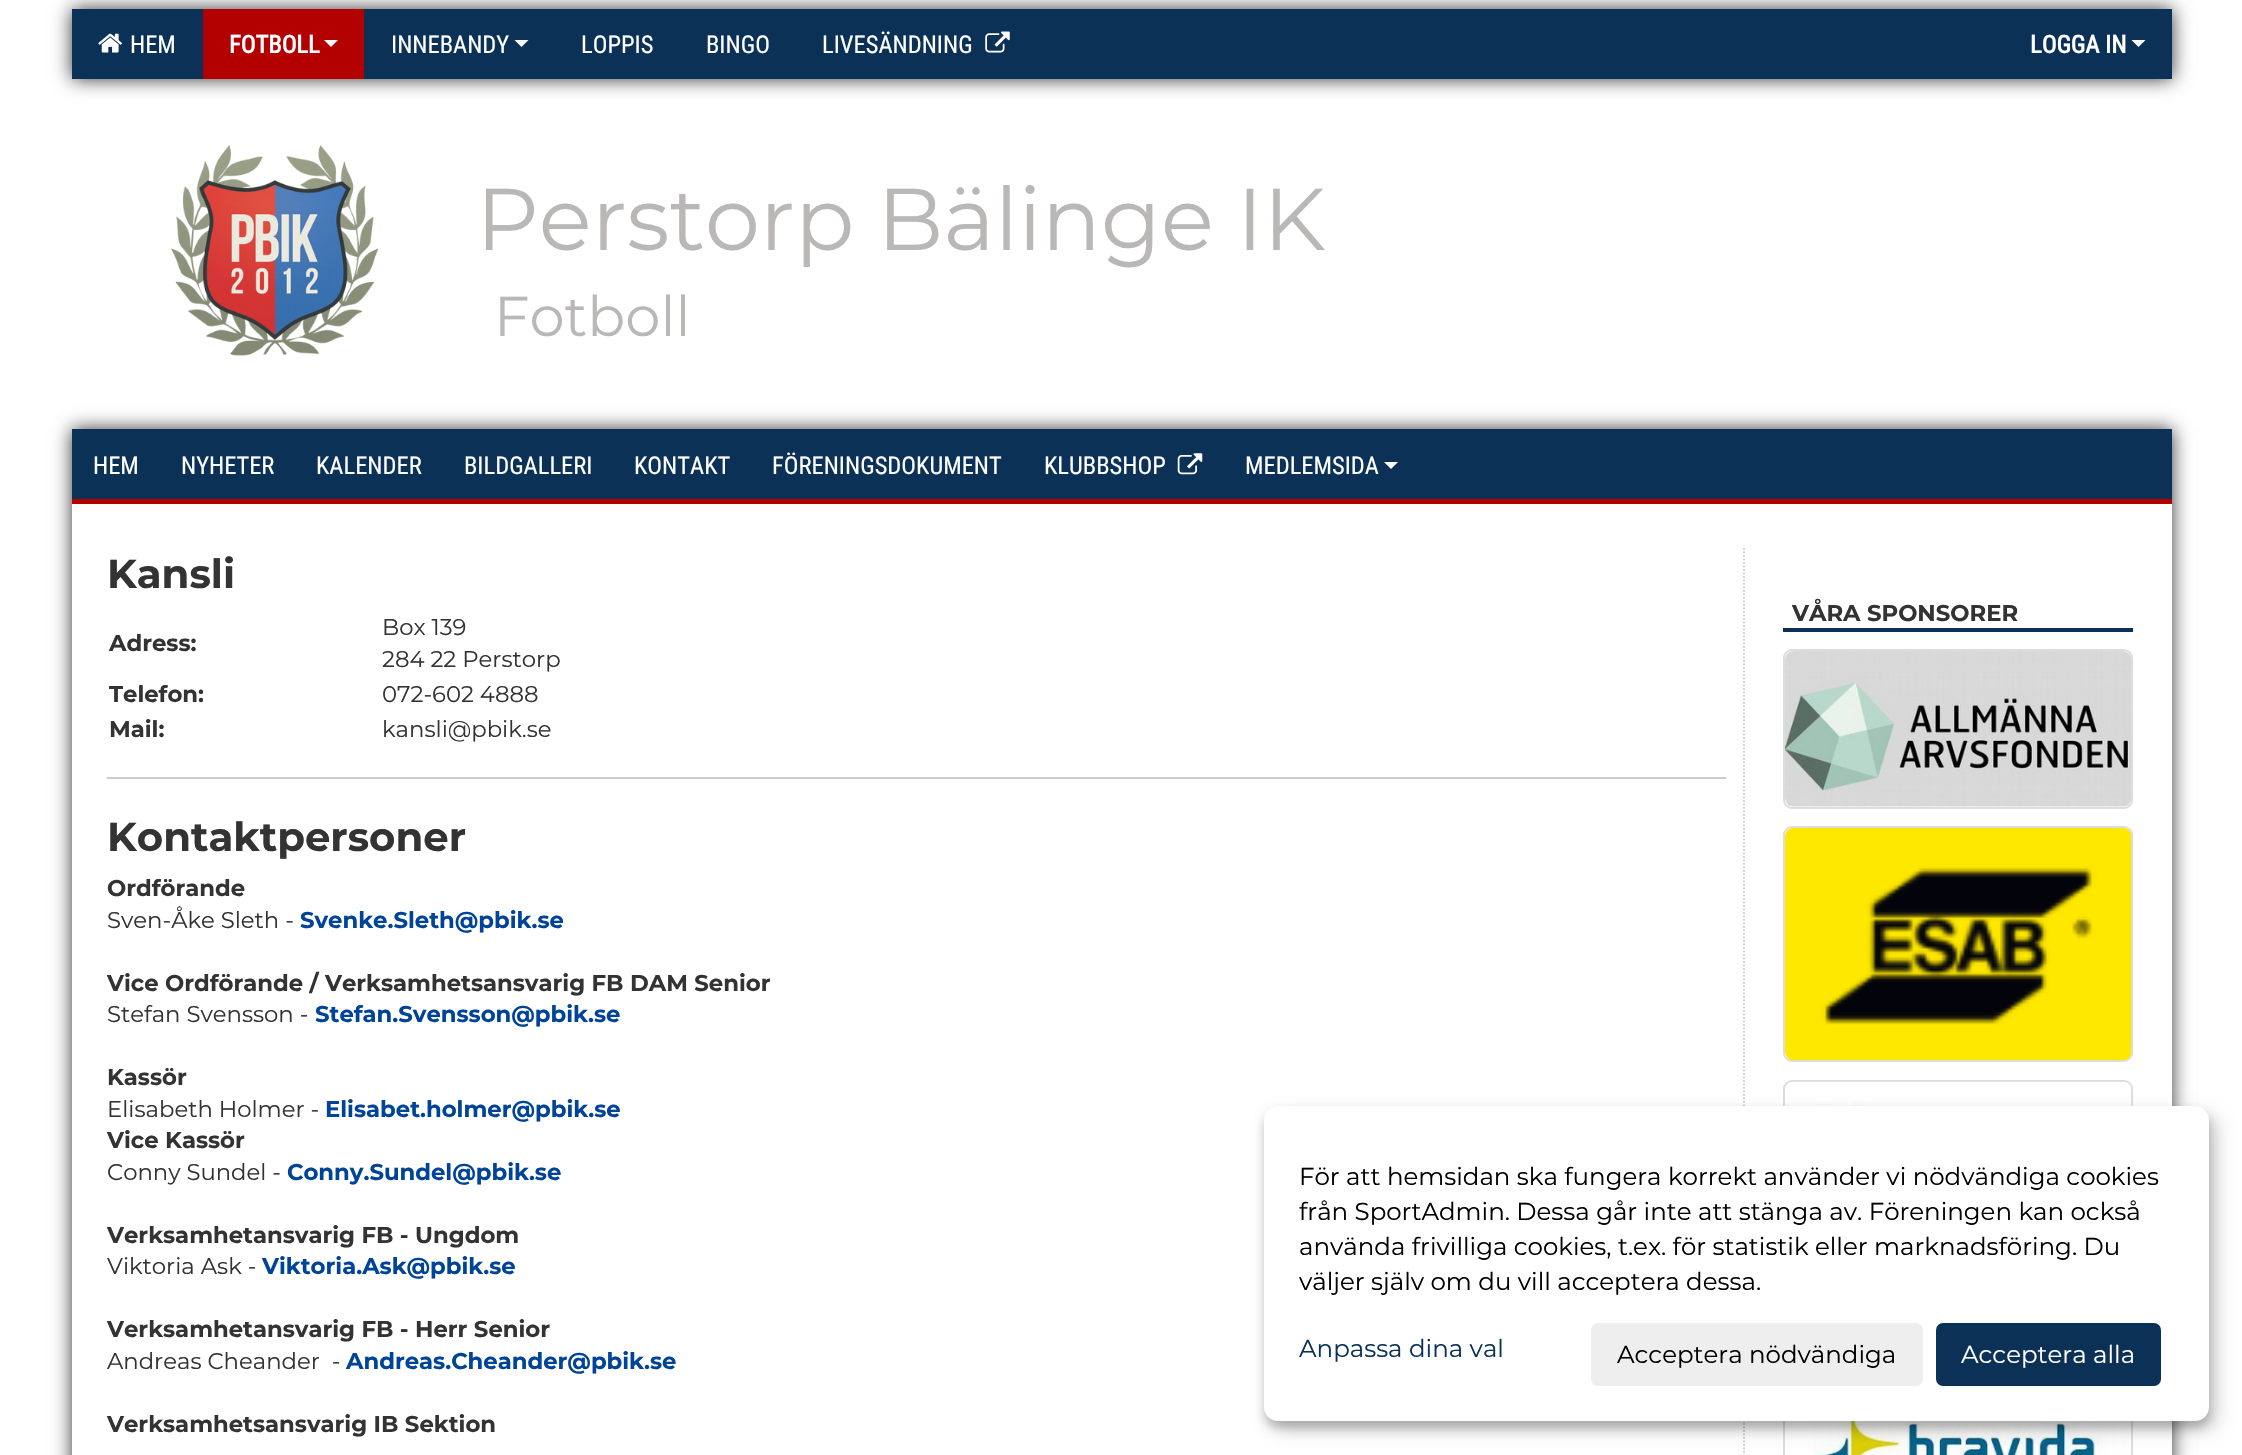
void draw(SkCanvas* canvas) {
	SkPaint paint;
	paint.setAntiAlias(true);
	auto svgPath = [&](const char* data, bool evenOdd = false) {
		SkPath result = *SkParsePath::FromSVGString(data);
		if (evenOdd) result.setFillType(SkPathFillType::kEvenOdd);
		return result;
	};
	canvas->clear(0xffffffff);
	paint.setColor(0xff333333);
	paint.setMaskFilter(SkMaskFilter::MakeBlur(kNormal_SkBlurStyle, 9));
	canvas->drawRect(SkRect::MakeXYWH(72, 9, 2100, 70), paint);
	paint.setMaskFilter(nullptr);
	paint.setColor(0xff0b3157);
	canvas->drawRect(SkRect::MakeXYWH(72, 9, 2100, 70), paint);
	canvas->drawImageRect(SkImages::DeferredFromEncodedData(SkData::MakeFromFileName("img1.png")), SkRect::MakeXYWH(98, 33, 24, 20), SkSamplingOptions());
	SkFont f1(fontMgr->matchFamilyStyle("Roboto Condensed", SkFontStyle::Normal()), 24.5);
	f1.setSubpixel(true);
	paint.setColor(0xffffffff);
	canvas->drawString("HEM", 130, 53, f1, paint);
	paint.setColor(0xffb30000);
	canvas->drawRect(SkRect::MakeXYWH(203, 9, 161, 70), paint);
	SkFont f2(fontMgr->matchFamilyStyle("Roboto Condensed", SkFontStyle::Bold()), 24.5);
	f2.setSubpixel(true);
	paint.setColor(0xffffffff);
	canvas->drawString("FOTBOLL", 229, 53, f2, paint);
	canvas->drawPath(svgPath("M324 40H338L331 47Z"), paint);
	canvas->drawString("INNEBANDY", 391, 53, f1, paint);
	canvas->drawPath(svgPath("M514.5 40H528.5L521.5 47Z"), paint);
	canvas->drawString("LOPPIS", 581, 53, f1, paint);
	canvas->drawString("BINGO", 706, 53, f1, paint);
	canvas->drawString("LIVESÄNDNING", 822, 53, f1, paint);
	canvas->drawImageRect(SkImages::DeferredFromEncodedData(SkData::MakeFromFileName("img2.png")), SkRect::MakeXYWH(985, 31, 25, 22), SkSamplingOptions());
	canvas->drawString("LOGGA IN", 2030, 53, f2, paint);
	canvas->drawPath(svgPath("M2131.5 40H2145.5L2138.5 47Z"), paint);
	canvas->drawImageRect(SkImages::DeferredFromEncodedData(SkData::MakeFromFileName("img3.png")), SkRect::MakeXYWH(171, 145, 208, 211), SkSamplingOptions());
	SkFont f3(fontMgr->matchFamilyStyle("Montserrat", SkFontStyle::Normal()), 87.5);
	f3.setSubpixel(true);
	paint.setColor(0xffbab7b7);
	canvas->drawString("Perstorp Bälinge IK", 476, 250, f3, paint);
	SkFont f4(fontMgr->matchFamilyStyle("Montserrat", SkFontStyle::Normal()), 56);
	f4.setSubpixel(true);
	canvas->drawString("Fotboll", 494, 336, f4, paint);
	paint.setColor(0xff333333);
	paint.setMaskFilter(SkMaskFilter::MakeBlur(kNormal_SkBlurStyle, 9));
	canvas->drawRect(SkRect::MakeXYWH(72, 429, 2100, 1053), paint);
	paint.setMaskFilter(nullptr);
	paint.setColor(0xffffffff);
	canvas->drawRect(SkRect::MakeXYWH(72, 504, 2100, 951), paint);
	paint.setColor(0xff0b3157);
	canvas->drawRect(SkRect::MakeXYWH(72, 429, 2100, 70), paint);
	paint.setColor(0xffffffff);
	canvas->drawString("HEM", 93, 474, f1, paint);
	canvas->drawString("NYHETER", 181, 474, f1, paint);
	canvas->drawString("KALENDER", 316, 474, f1, paint);
	canvas->drawString("BILDGALLERI", 464, 474, f1, paint);
	canvas->drawString("KONTAKT", 634, 474, f1, paint);
	canvas->drawString("FÖRENINGSDOKUMENT", 772, 474, f1, paint);
	canvas->drawString("KLUBBSHOP", 1044, 474, f1, paint);
	canvas->drawImageRect(SkImages::DeferredFromEncodedData(SkData::MakeFromFileName("img4.png")), SkRect::MakeXYWH(1177, 453, 26, 22), SkSamplingOptions());
	canvas->drawString("MEDLEMSIDA", 1245, 474, f1, paint);
	canvas->drawPath(svgPath("M1384 462H1398L1391 469Z"), paint);
	paint.setColor(0xffb30000);
	canvas->drawRect(SkRect::MakeXYWH(72, 499, 2100, 5), paint);
	SkFont f5(fontMgr->matchFamilyStyle("Montserrat", SkFontStyle::Bold()), 40.25);
	f5.setSubpixel(true);
	paint.setColor(0xff333333);
	canvas->drawString("Kansli", 107, 588, f5, paint);
	SkFont f6(fontMgr->matchFamilyStyle("Montserrat", SkFontStyle::Bold()), 22.75);
	f6.setSubpixel(true);
	canvas->drawString("Adress:", 109, 651, f6, paint);
	SkFont f7(fontMgr->matchFamilyStyle("Montserrat", SkFontStyle::Normal()), 22.75);
	f7.setSubpixel(true);
	canvas->drawString("Box 139", 382, 635, f7, paint);
	canvas->drawString("284 22 Perstorp", 382, 667, f7, paint);
	canvas->drawString("Telefon:", 109, 702, f6, paint);
	canvas->drawString("072-602 4888", 382, 702, f7, paint);
	canvas->drawString("Mail:", 109, 737, f6, paint);
	canvas->drawString("kansli@pbik.se", 382, 737, f7, paint);
	paint.setColor(0xffcccccc);
	canvas->drawRect(SkRect::MakeXYWH(107, 777, 1619, 2), paint);
	paint.setColor(0xff333333);
	canvas->drawString("Kontaktpersoner", 107, 851, f5, paint);
	canvas->drawString("Ordförande", 107, 896, f6, paint);
	canvas->drawString("Sven-Åke Sleth -", 107, 928, f7, paint);
	paint.setColor(0xff004499);
	canvas->drawString("Svenke.Sleth@pbik.se", 300, 928, f6, paint);
	paint.setColor(0xff333333);
	canvas->drawString("Vice Ordförande / Verksamhetsansvarig FB DAM Senior", 107, 991, f6, paint);
	canvas->drawString("Stefan Svensson -", 107, 1022, f7, paint);
	paint.setColor(0xff004499);
	canvas->drawString("Stefan.Svensson@pbik.se", 315, 1022, f6, paint);
	paint.setColor(0xff333333);
	canvas->drawString("Kassör", 107, 1085, f6, paint);
	canvas->drawString("Elisabeth Holmer -", 107, 1117, f7, paint);
	paint.setColor(0xff004499);
	canvas->drawString("Elisabet.holmer@pbik.se", 325, 1117, f6, paint);
	paint.setColor(0xff333333);
	canvas->drawString("Vice Kassör", 107, 1148, f6, paint);
	canvas->drawString("Conny Sundel -", 107, 1180, f7, paint);
	paint.setColor(0xff004499);
	canvas->drawString("Conny.Sundel@pbik.se", 287, 1180, f6, paint);
	paint.setColor(0xff333333);
	canvas->drawString("Verksamhetansvarig FB - Ungdom", 107, 1243, f6, paint);
	canvas->drawString("Viktoria Ask -", 107, 1274, f7, paint);
	paint.setColor(0xff004499);
	canvas->drawString("Viktoria.Ask@pbik.se", 262, 1274, f6, paint);
	paint.setColor(0xff333333);
	canvas->drawString("Verksamhetansvarig FB - Herr Senior", 107, 1337, f6, paint);
	canvas->drawString("Andreas Cheander  -", 107, 1369, f7, paint);
	paint.setColor(0xff004499);
	canvas->drawString("Andreas.Cheander@pbik.se", 346, 1369, f6, paint);
	paint.setColor(0xff333333);
	canvas->drawString("Verksamhetsansvarig IB Sektion", 107, 1432, f6, paint);
	paint.setStroke(true);
	paint.setStrokeWidth(1.8);
	paint.setColor(0xffcccccc);
	paint.setPathEffect(SkDashPathEffect::Make({{1.75f, 1.75f}}, 0));
	canvas->drawPath(svgPath("M1744 548V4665.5"), paint);
	paint.setPathEffect(nullptr);
	paint.setStroke(false);
	paint.setColor(0xff0b3157);
	canvas->drawRect(SkRect::MakeXYWH(1783, 628, 350, 4), paint);
	paint.setColor(0xff333333);
	canvas->drawString("VÅRA SPONSORER", 1792, 621, f6, paint);
	paint.setStroke(true);
	paint.setStrokeWidth(2);
	paint.setColor(0xffdddddd);
	canvas->drawRoundRect(SkRect::MakeXYWH(1784, 650, 348, 158), 8, 8, paint);
	canvas->drawImageRect(SkImages::DeferredFromEncodedData(SkData::MakeFromFileName("img5.png")), SkRect::MakeXYWH(1785, 651, 346, 156), SkSamplingOptions());
	canvas->drawRoundRect(SkRect::MakeXYWH(1784, 827, 348, 234), 8, 8, paint);
	canvas->drawImageRect(SkImages::DeferredFromEncodedData(SkData::MakeFromFileName("img6.png")), SkRect::MakeXYWH(1785, 828, 347, 233), SkSamplingOptions());
	canvas->drawRoundRect(SkRect::MakeXYWH(1784, 1081, 348, 126), 8, 8, paint);
	canvas->drawImageRect(SkImages::DeferredFromEncodedData(SkData::MakeFromFileName("img7.png")), SkRect::MakeXYWH(1785, 1081, 347, 25), SkSamplingOptions());
	canvas->drawRect(SkRect::MakeXYWH(1784, 1380, 348, 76), paint);
	canvas->drawImageRect(SkImages::DeferredFromEncodedData(SkData::MakeFromFileName("img8.png")), SkRect::MakeXYWH(1813, 1421, 319, 34), SkSamplingOptions());
	paint.setStroke(false);
	paint.setColor(0x30000000);
	paint.setMaskFilter(SkMaskFilter::MakeBlur(kNormal_SkBlurStyle, 9));
	canvas->drawRoundRect(SkRect::MakeXYWH(1272, 1115, 945, 315), 14, 14, paint);
	paint.setMaskFilter(nullptr);
	paint.setColor(0x33000000);
	paint.setMaskFilter(SkMaskFilter::MakeBlur(kNormal_SkBlurStyle, 5));
	canvas->drawRoundRect(SkRect::MakeXYWH(1264, 1113, 945, 315), 14, 14, paint);
	paint.setMaskFilter(nullptr);
	paint.setColor(0xffffffff);
	canvas->drawRoundRect(SkRect::MakeXYWH(1264, 1106, 945, 315), 14, 14, paint);
	SkFont f8(fontMgr->matchFamilyStyle("Montserrat", SkFontStyle::Normal()), 24.5);
	f8.setSubpixel(true);
	paint.setColor(0xff000000);
	canvas->drawString("För att hemsidan ska fungera korrekt använder vi nödvändiga cookies", 1299, 1185, f8, paint);
	canvas->drawString("från SportAdmin. Dessa går inte att stänga av. Föreningen kan också", 1299, 1220, f8, paint);
	canvas->drawString("använda frivilliga cookies, t.ex. för statistik eller marknadsföring. Du", 1299, 1255, f8, paint);
	canvas->drawString("väljer själv om du vill acceptera dessa.", 1299, 1290, f8, paint);
	paint.setColor(0xff0b3157);
	canvas->drawString("Anpassa dina val", 1299, 1357, f8, paint);
	paint.setColor(0xffeeeeee);
	canvas->drawRoundRect(SkRect::MakeXYWH(1591, 1323, 332, 63), 7, 7, paint);
	paint.setColor(0xff000000);
	canvas->drawString("Acceptera nödvändiga", 1617, 1363, f8, paint);
	paint.setColor(0xff0b3157);
	canvas->drawRoundRect(SkRect::MakeXYWH(1936, 1323, 225, 63), 7, 7, paint);
	paint.setColor(0xffffffff);
	canvas->drawString("Acceptera alla", 1961, 1363, f8, paint);
}
